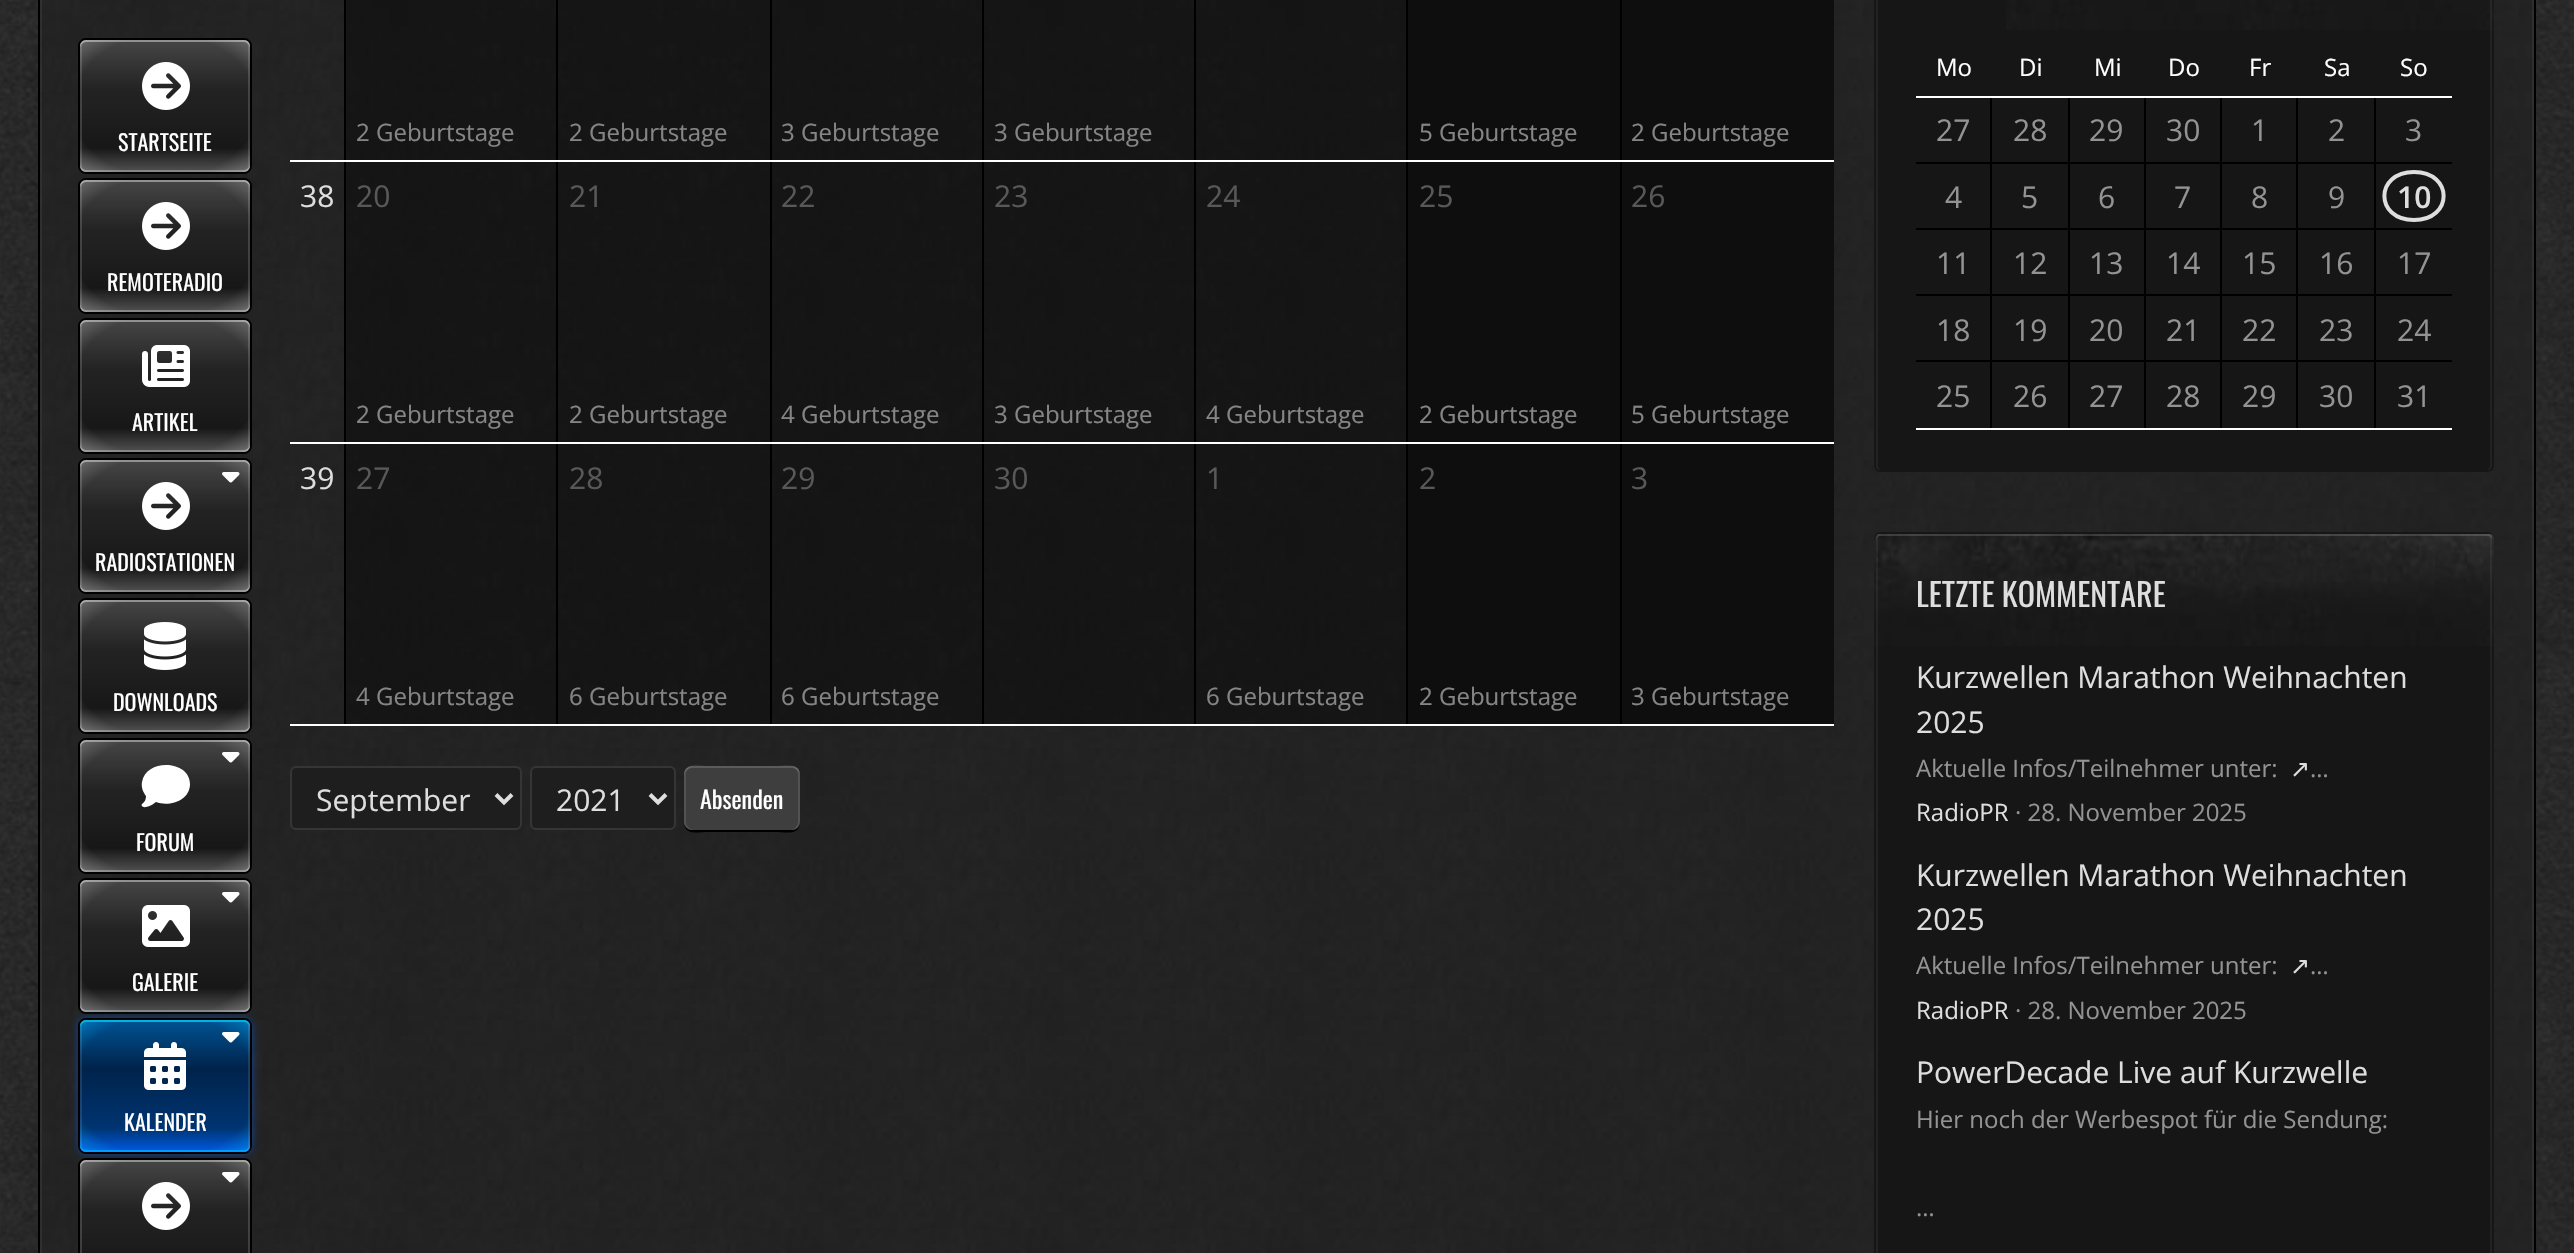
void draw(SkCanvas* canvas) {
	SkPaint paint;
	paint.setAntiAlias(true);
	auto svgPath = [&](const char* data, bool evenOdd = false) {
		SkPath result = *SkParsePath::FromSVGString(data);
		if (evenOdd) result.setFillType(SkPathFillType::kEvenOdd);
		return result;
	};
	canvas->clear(0xffffffff);
	canvas->drawImageRect(SkImages::DeferredFromEncodedData(SkData::MakeFromFileName("img1.png")), SkRect::MakeXYWH(0, 0, 2574, 1253), SkSamplingOptions());
	paint.setColor(0xff000000);
	canvas->drawRect(SkRect::MakeXYWH(2534, 0, 2, 1253), paint);
	canvas->drawRect(SkRect::MakeXYWH(38, 0, 2, 1253), paint);
	canvas->drawImageRect(SkImages::DeferredFromEncodedData(SkData::MakeFromFileName("img2.png")), SkRect::MakeXYWH(40, 0, 2494, 1253), SkSamplingOptions());
	paint.setColor(0x0dffffff);
	canvas->drawRect(SkRect::MakeXYWH(2532, 0, 2, 1253), paint);
	canvas->drawRect(SkRect::MakeXYWH(40, 0, 2, 1253), paint);
	paint.setColor(0xff171717);
	canvas->drawRoundRect(SkRect::MakeXYWH(79, 39, 172, 134), 7, 7, paint);
	paint.setStroke(true);
	paint.setStrokeWidth(2);
	paint.setColor(0xff000000);
	canvas->drawRoundRect(SkRect::MakeXYWH(79, 39, 172, 134), 7, 7, paint);
	paint.setStroke(false);
	{
		const SkColor colors[] = {0x33ffffff, 0x0dffffff, 0x00ffffff, 0x40ffffff};
		const float stops[] = {0, 0.37, 0.82, 1};
		const SkPoint ends[] = {{165, 40}, {165, 172}};
		paint.setShader(SkGradientShader::MakeLinear(ends, colors, stops, 4, SkTileMode::kClamp));
		paint.setAlpha(255);
	}
	canvas->drawRoundRect(SkRect::MakeXYWH(80, 40, 170, 132), 6, 6, paint);
	{
		const SkColor colors[] = {0x00000000, 0x00ffffff, 0x33ffffff};
		const float stops[] = {0, 0.77, 1};
		SkMatrix m = SkMatrix::Translate(165, 106).preScale(120, 93);
		paint.setShader(SkGradientShader::MakeRadial({0, 0}, 1, colors, stops, 3, SkTileMode::kClamp, 0, &m));
		paint.setAlpha(255);
	}
	canvas->drawRoundRect(SkRect::MakeXYWH(80, 40, 170, 132), 6, 6, paint);
	paint.setShader(nullptr);
	paint.setColor(0x26ffffff);
	canvas->drawPath(svgPath("M242 172H244C247 172 250 169 250 166V46C250 43 247 40 244 40H242C245 40 248 43 248 46V166C248 169 245 172 242 172Z"), paint);
	canvas->drawPath(svgPath("M86 40C83 40 80 43 80 46V166C80 169 83 172 86 172H88C85 172 82 169 82 166V46C82 43 85 40 88 40Z"), paint);
	paint.setColor(0x4dffffff);
	canvas->drawPath(svgPath("M80 164V166C80 169 83 172 86 172H244C247 172 250 169 250 166V164C250 167 247 170 244 170H86C83 170 80 167 80 164Z"), paint);
	paint.setColor(0x66ffffff);
	canvas->drawPath(svgPath("M86 42H244C247 42 250 45 250 48V46C250 43 247 40 244 40H86C83 40 80 43 80 46V48C80 45 83 42 86 42Z"), paint);
	canvas->drawImageRect(SkImages::DeferredFromEncodedData(SkData::MakeFromFileName("img3.png")), SkRect::MakeXYWH(142, 62, 48, 48), SkSamplingOptions());
	SkFont f1(fontMgr->matchFamilyStyle("Oswald", SkFontStyle::Normal()), 22);
	f1.setSubpixel(true);
	paint.setColor(0xffffffff);
	canvas->drawString("STARTSEITE", 118, 151, f1, paint);
	paint.setColor(0xff171717);
	canvas->drawRoundRect(SkRect::MakeXYWH(79, 179, 172, 134), 7, 7, paint);
	paint.setStroke(true);
	paint.setColor(0xff000000);
	canvas->drawRoundRect(SkRect::MakeXYWH(79, 179, 172, 134), 7, 7, paint);
	paint.setStroke(false);
	{
		const SkColor colors[] = {0x33ffffff, 0x0dffffff, 0x00ffffff, 0x40ffffff};
		const float stops[] = {0, 0.37, 0.82, 1};
		const SkPoint ends[] = {{165, 180}, {165, 312}};
		paint.setShader(SkGradientShader::MakeLinear(ends, colors, stops, 4, SkTileMode::kClamp));
		paint.setAlpha(255);
	}
	canvas->drawRoundRect(SkRect::MakeXYWH(80, 180, 170, 132), 6, 6, paint);
	{
		const SkColor colors[] = {0x00000000, 0x00ffffff, 0x33ffffff};
		const float stops[] = {0, 0.77, 1};
		SkMatrix m = SkMatrix::Translate(165, 246).preScale(120, 93);
		paint.setShader(SkGradientShader::MakeRadial({0, 0}, 1, colors, stops, 3, SkTileMode::kClamp, 0, &m));
		paint.setAlpha(255);
	}
	canvas->drawRoundRect(SkRect::MakeXYWH(80, 180, 170, 132), 6, 6, paint);
	paint.setShader(nullptr);
	paint.setColor(0x26ffffff);
	canvas->drawPath(svgPath("M242 312H244C247 312 250 309 250 306V186C250 183 247 180 244 180H242C245 180 248 183 248 186V306C248 309 245 312 242 312Z"), paint);
	canvas->drawPath(svgPath("M86 180C83 180 80 183 80 186V306C80 309 83 312 86 312H88C85 312 82 309 82 306V186C82 183 85 180 88 180Z"), paint);
	paint.setColor(0x4dffffff);
	canvas->drawPath(svgPath("M80 304V306C80 309 83 312 86 312H244C247 312 250 309 250 306V304C250 307 247 310 244 310H86C83 310 80 307 80 304Z"), paint);
	paint.setColor(0x66ffffff);
	canvas->drawPath(svgPath("M86 182H244C247 182 250 185 250 188V186C250 183 247 180 244 180H86C83 180 80 183 80 186V188C80 185 83 182 86 182Z"), paint);
	canvas->drawImageRect(SkImages::DeferredFromEncodedData(SkData::MakeFromFileName("img3.png")), SkRect::MakeXYWH(142, 202, 48, 48), SkSamplingOptions());
	paint.setColor(0xffffffff);
	canvas->drawString("REMOTERADIO", 107, 291, f1, paint);
	paint.setColor(0xff171717);
	canvas->drawRoundRect(SkRect::MakeXYWH(79, 319, 172, 134), 7, 7, paint);
	paint.setStroke(true);
	paint.setColor(0xff000000);
	canvas->drawRoundRect(SkRect::MakeXYWH(79, 319, 172, 134), 7, 7, paint);
	paint.setStroke(false);
	{
		const SkColor colors[] = {0x33ffffff, 0x0dffffff, 0x00ffffff, 0x40ffffff};
		const float stops[] = {0, 0.37, 0.82, 1};
		const SkPoint ends[] = {{165, 320}, {165, 452}};
		paint.setShader(SkGradientShader::MakeLinear(ends, colors, stops, 4, SkTileMode::kClamp));
		paint.setAlpha(255);
	}
	canvas->drawRoundRect(SkRect::MakeXYWH(80, 320, 170, 132), 6, 6, paint);
	{
		const SkColor colors[] = {0x00000000, 0x00ffffff, 0x33ffffff};
		const float stops[] = {0, 0.77, 1};
		SkMatrix m = SkMatrix::Translate(165, 386).preScale(120, 93);
		paint.setShader(SkGradientShader::MakeRadial({0, 0}, 1, colors, stops, 3, SkTileMode::kClamp, 0, &m));
		paint.setAlpha(255);
	}
	canvas->drawRoundRect(SkRect::MakeXYWH(80, 320, 170, 132), 6, 6, paint);
	paint.setShader(nullptr);
	paint.setColor(0x26ffffff);
	canvas->drawPath(svgPath("M242 452H244C247 452 250 449 250 446V326C250 323 247 320 244 320H242C245 320 248 323 248 326V446C248 449 245 452 242 452Z"), paint);
	canvas->drawPath(svgPath("M86 320C83 320 80 323 80 326V446C80 449 83 452 86 452H88C85 452 82 449 82 446V326C82 323 85 320 88 320Z"), paint);
	paint.setColor(0x4dffffff);
	canvas->drawPath(svgPath("M80 444V446C80 449 83 452 86 452H244C247 452 250 449 250 446V444C250 447 247 450 244 450H86C83 450 80 447 80 444Z"), paint);
	paint.setColor(0x66ffffff);
	canvas->drawPath(svgPath("M86 322H244C247 322 250 325 250 328V326C250 323 247 320 244 320H86C83 320 80 323 80 326V328C80 325 83 322 86 322Z"), paint);
	canvas->drawImageRect(SkImages::DeferredFromEncodedData(SkData::MakeFromFileName("img4.png")), SkRect::MakeXYWH(142, 345, 48, 42), SkSamplingOptions());
	paint.setColor(0xffffffff);
	canvas->drawString("ARTIKEL", 132, 431, f1, paint);
	paint.setColor(0xff171717);
	canvas->drawRoundRect(SkRect::MakeXYWH(79, 459, 172, 134), 7, 7, paint);
	paint.setStroke(true);
	paint.setColor(0xff000000);
	canvas->drawRoundRect(SkRect::MakeXYWH(79, 459, 172, 134), 7, 7, paint);
	paint.setStroke(false);
	{
		const SkColor colors[] = {0x33ffffff, 0x0dffffff, 0x00ffffff, 0x40ffffff};
		const float stops[] = {0, 0.37, 0.82, 1};
		const SkPoint ends[] = {{165, 460}, {165, 592}};
		paint.setShader(SkGradientShader::MakeLinear(ends, colors, stops, 4, SkTileMode::kClamp));
		paint.setAlpha(255);
	}
	canvas->drawRoundRect(SkRect::MakeXYWH(80, 460, 170, 132), 6, 6, paint);
	{
		const SkColor colors[] = {0x00000000, 0x00ffffff, 0x33ffffff};
		const float stops[] = {0, 0.77, 1};
		SkMatrix m = SkMatrix::Translate(165, 526).preScale(120, 93);
		paint.setShader(SkGradientShader::MakeRadial({0, 0}, 1, colors, stops, 3, SkTileMode::kClamp, 0, &m));
		paint.setAlpha(255);
	}
	canvas->drawRoundRect(SkRect::MakeXYWH(80, 460, 170, 132), 6, 6, paint);
	paint.setShader(nullptr);
	paint.setColor(0x26ffffff);
	canvas->drawPath(svgPath("M242 592H244C247 592 250 589 250 586V466C250 463 247 460 244 460H242C245 460 248 463 248 466V586C248 589 245 592 242 592Z"), paint);
	canvas->drawPath(svgPath("M86 460C83 460 80 463 80 466V586C80 589 83 592 86 592H88C85 592 82 589 82 586V466C82 463 85 460 88 460Z"), paint);
	paint.setColor(0x4dffffff);
	canvas->drawPath(svgPath("M80 584V586C80 589 83 592 86 592H244C247 592 250 589 250 586V584C250 587 247 590 244 590H86C83 590 80 587 80 584Z"), paint);
	paint.setColor(0x66ffffff);
	canvas->drawPath(svgPath("M86 462H244C247 462 250 465 250 468V466C250 463 247 460 244 460H86C83 460 80 463 80 466V468C80 465 83 462 86 462Z"), paint);
	canvas->drawImageRect(SkImages::DeferredFromEncodedData(SkData::MakeFromFileName("img5.png")), SkRect::MakeXYWH(222, 472, 18, 11), SkSamplingOptions());
	canvas->drawImageRect(SkImages::DeferredFromEncodedData(SkData::MakeFromFileName("img3.png")), SkRect::MakeXYWH(142, 482, 48, 48), SkSamplingOptions());
	paint.setColor(0xffffffff);
	canvas->drawString("RADIOSTATIONEN", 95, 571, f1, paint);
	paint.setColor(0xff171717);
	canvas->drawRoundRect(SkRect::MakeXYWH(79, 599, 172, 134), 7, 7, paint);
	paint.setStroke(true);
	paint.setColor(0xff000000);
	canvas->drawRoundRect(SkRect::MakeXYWH(79, 599, 172, 134), 7, 7, paint);
	paint.setStroke(false);
	{
		const SkColor colors[] = {0x33ffffff, 0x0dffffff, 0x00ffffff, 0x40ffffff};
		const float stops[] = {0, 0.37, 0.82, 1};
		const SkPoint ends[] = {{165, 600}, {165, 732}};
		paint.setShader(SkGradientShader::MakeLinear(ends, colors, stops, 4, SkTileMode::kClamp));
		paint.setAlpha(255);
	}
	canvas->drawRoundRect(SkRect::MakeXYWH(80, 600, 170, 132), 6, 6, paint);
	{
		const SkColor colors[] = {0x00000000, 0x00ffffff, 0x33ffffff};
		const float stops[] = {0, 0.77, 1};
		SkMatrix m = SkMatrix::Translate(165, 666).preScale(120, 93);
		paint.setShader(SkGradientShader::MakeRadial({0, 0}, 1, colors, stops, 3, SkTileMode::kClamp, 0, &m));
		paint.setAlpha(255);
	}
	canvas->drawRoundRect(SkRect::MakeXYWH(80, 600, 170, 132), 6, 6, paint);
	paint.setShader(nullptr);
	paint.setColor(0x26ffffff);
	canvas->drawPath(svgPath("M242 732H244C247 732 250 729 250 726V606C250 603 247 600 244 600H242C245 600 248 603 248 606V726C248 729 245 732 242 732Z"), paint);
	canvas->drawPath(svgPath("M86 600C83 600 80 603 80 606V726C80 729 83 732 86 732H88C85 732 82 729 82 726V606C82 603 85 600 88 600Z"), paint);
	paint.setColor(0x4dffffff);
	canvas->drawPath(svgPath("M80 724V726C80 729 83 732 86 732H244C247 732 250 729 250 726V724C250 727 247 730 244 730H86C83 730 80 727 80 724Z"), paint);
	paint.setColor(0x66ffffff);
	canvas->drawPath(svgPath("M86 602H244C247 602 250 605 250 608V606C250 603 247 600 244 600H86C83 600 80 603 80 606V608C80 605 83 602 86 602Z"), paint);
	canvas->drawImageRect(SkImages::DeferredFromEncodedData(SkData::MakeFromFileName("img6.png")), SkRect::MakeXYWH(144, 622, 42, 48), SkSamplingOptions());
	paint.setColor(0xffffffff);
	canvas->drawString("DOWNLOADS", 113, 711, f1, paint);
	paint.setColor(0xff171717);
	canvas->drawRoundRect(SkRect::MakeXYWH(79, 739, 172, 134), 7, 7, paint);
	paint.setStroke(true);
	paint.setColor(0xff000000);
	canvas->drawRoundRect(SkRect::MakeXYWH(79, 739, 172, 134), 7, 7, paint);
	paint.setStroke(false);
	{
		const SkColor colors[] = {0x33ffffff, 0x0dffffff, 0x00ffffff, 0x40ffffff};
		const float stops[] = {0, 0.37, 0.82, 1};
		const SkPoint ends[] = {{165, 740}, {165, 872}};
		paint.setShader(SkGradientShader::MakeLinear(ends, colors, stops, 4, SkTileMode::kClamp));
		paint.setAlpha(255);
	}
	canvas->drawRoundRect(SkRect::MakeXYWH(80, 740, 170, 132), 6, 6, paint);
	{
		const SkColor colors[] = {0x00000000, 0x00ffffff, 0x33ffffff};
		const float stops[] = {0, 0.77, 1};
		SkMatrix m = SkMatrix::Translate(165, 806).preScale(120, 93);
		paint.setShader(SkGradientShader::MakeRadial({0, 0}, 1, colors, stops, 3, SkTileMode::kClamp, 0, &m));
		paint.setAlpha(255);
	}
	canvas->drawRoundRect(SkRect::MakeXYWH(80, 740, 170, 132), 6, 6, paint);
	paint.setShader(nullptr);
	paint.setColor(0x26ffffff);
	canvas->drawPath(svgPath("M242 872H244C247 872 250 869 250 866V746C250 743 247 740 244 740H242C245 740 248 743 248 746V866C248 869 245 872 242 872Z"), paint);
	canvas->drawPath(svgPath("M86 740C83 740 80 743 80 746V866C80 869 83 872 86 872H88C85 872 82 869 82 866V746C82 743 85 740 88 740Z"), paint);
	paint.setColor(0x4dffffff);
	canvas->drawPath(svgPath("M80 864V866C80 869 83 872 86 872H244C247 872 250 869 250 866V864C250 867 247 870 244 870H86C83 870 80 867 80 864Z"), paint);
	paint.setColor(0x66ffffff);
	canvas->drawPath(svgPath("M86 742H244C247 742 250 745 250 748V746C250 743 247 740 244 740H86C83 740 80 743 80 746V748C80 745 83 742 86 742Z"), paint);
	canvas->drawImageRect(SkImages::DeferredFromEncodedData(SkData::MakeFromFileName("img5.png")), SkRect::MakeXYWH(222, 752, 18, 11), SkSamplingOptions());
	paint.setColor(0xffffffff);
	canvas->drawPath(svgPath("M190 784C190 801 169 807 156 802C146 810 140 807 142 804C145 802 146 799 146 796C143 792 141 787 142 782C146 758 190 760 190 784Z"), paint);
	canvas->drawString("FORUM", 136, 851, f1, paint);
	paint.setColor(0xff171717);
	canvas->drawRoundRect(SkRect::MakeXYWH(79, 879, 172, 134), 7, 7, paint);
	paint.setStroke(true);
	paint.setColor(0xff000000);
	canvas->drawRoundRect(SkRect::MakeXYWH(79, 879, 172, 134), 7, 7, paint);
	paint.setStroke(false);
	{
		const SkColor colors[] = {0x33ffffff, 0x0dffffff, 0x00ffffff, 0x40ffffff};
		const float stops[] = {0, 0.37, 0.82, 1};
		const SkPoint ends[] = {{165, 880}, {165, 1012}};
		paint.setShader(SkGradientShader::MakeLinear(ends, colors, stops, 4, SkTileMode::kClamp));
		paint.setAlpha(255);
	}
	canvas->drawRoundRect(SkRect::MakeXYWH(80, 880, 170, 132), 6, 6, paint);
	{
		const SkColor colors[] = {0x00000000, 0x00ffffff, 0x33ffffff};
		const float stops[] = {0, 0.77, 1};
		SkMatrix m = SkMatrix::Translate(165, 946).preScale(120, 93);
		paint.setShader(SkGradientShader::MakeRadial({0, 0}, 1, colors, stops, 3, SkTileMode::kClamp, 0, &m));
		paint.setAlpha(255);
	}
	canvas->drawRoundRect(SkRect::MakeXYWH(80, 880, 170, 132), 6, 6, paint);
	paint.setShader(nullptr);
	paint.setColor(0x26ffffff);
	canvas->drawPath(svgPath("M242 1012H244C247 1012 250 1009 250 1006V886C250 883 247 880 244 880H242C245 880 248 883 248 886V1006C248 1009 245 1012 242 1012Z"), paint);
	canvas->drawPath(svgPath("M86 880C83 880 80 883 80 886V1006C80 1009 83 1012 86 1012H88C85 1012 82 1009 82 1006V886C82 883 85 880 88 880Z"), paint);
	paint.setColor(0x4dffffff);
	canvas->drawPath(svgPath("M80 1004V1006C80 1009 83 1012 86 1012H244C247 1012 250 1009 250 1006V1004C250 1007 247 1010 244 1010H86C83 1010 80 1007 80 1004Z"), paint);
	paint.setColor(0x66ffffff);
	canvas->drawPath(svgPath("M86 882H244C247 882 250 885 250 888V886C250 883 247 880 244 880H86C83 880 80 883 80 886V888C80 885 83 882 86 882Z"), paint);
	canvas->drawImageRect(SkImages::DeferredFromEncodedData(SkData::MakeFromFileName("img5.png")), SkRect::MakeXYWH(222, 892, 18, 11), SkSamplingOptions());
	canvas->drawImageRect(SkImages::DeferredFromEncodedData(SkData::MakeFromFileName("img7.png")), SkRect::MakeXYWH(142, 905, 48, 42), SkSamplingOptions());
	paint.setColor(0xffffffff);
	canvas->drawString("GALERIE", 132, 991, f1, paint);
	paint.setColor(0xff0059e3);
	paint.setMaskFilter(SkMaskFilter::MakeBlur(kNormal_SkBlurStyle, 5));
	canvas->drawRoundRect(SkRect::MakeXYWH(80, 1020, 170, 132), 6, 6, paint);
	paint.setMaskFilter(nullptr);
	paint.setStroke(true);
	paint.setColor(0xff000000);
	canvas->drawRoundRect(SkRect::MakeXYWH(79, 1019, 172, 134), 7, 7, paint);
	paint.setStroke(false);
	{
		const SkColor colors[] = {0xff005394, 0xff00234b, 0xff003471, 0xff0059e3};
		const float stops[] = {0, 0.37, 0.82, 1};
		const SkPoint ends[] = {{165, 1020}, {165, 1152}};
		paint.setShader(SkGradientShader::MakeLinear(ends, colors, stops, 4, SkTileMode::kClamp));
		paint.setAlpha(255);
	}
	canvas->drawRoundRect(SkRect::MakeXYWH(80, 1020, 170, 132), 6, 6, paint);
	{
		const SkColor colors[] = {0x00000000, 0x0002b7ff, 0x6102b7ff};
		const float stops[] = {0, 0.77, 1};
		SkMatrix m = SkMatrix::Translate(165, 1086).preScale(120, 93);
		paint.setShader(SkGradientShader::MakeRadial({0, 0}, 1, colors, stops, 3, SkTileMode::kClamp, 0, &m));
		paint.setAlpha(255);
	}
	canvas->drawRoundRect(SkRect::MakeXYWH(80, 1020, 170, 132), 6, 6, paint);
	paint.setShader(nullptr);
	paint.setColor(0x1affffff);
	canvas->drawPath(svgPath("M242 1152H244C247 1152 250 1149 250 1146V1026C250 1023 247 1020 244 1020H242C245 1020 248 1023 248 1026V1146C248 1149 245 1152 242 1152Z"), paint);
	canvas->drawPath(svgPath("M86 1020C83 1020 80 1023 80 1026V1146C80 1149 83 1152 86 1152H88C85 1152 82 1149 82 1146V1026C82 1023 85 1020 88 1020Z"), paint);
	paint.setColor(0xff009cff);
	canvas->drawPath(svgPath("M80 1144V1146C80 1149 83 1152 86 1152H244C247 1152 250 1149 250 1146V1144C250 1147 247 1150 244 1150H86C83 1150 80 1147 80 1144Z"), paint);
	paint.setColor(0xff00b4e2);
	canvas->drawPath(svgPath("M86 1022H244C247 1022 250 1025 250 1028V1026C250 1023 247 1020 244 1020H86C83 1020 80 1023 80 1026V1028C80 1025 83 1022 86 1022Z"), paint);
	canvas->drawImageRect(SkImages::DeferredFromEncodedData(SkData::MakeFromFileName("img8.png")), SkRect::MakeXYWH(222, 1032, 18, 11), SkSamplingOptions());
	canvas->drawImageRect(SkImages::DeferredFromEncodedData(SkData::MakeFromFileName("img9.png")), SkRect::MakeXYWH(144, 1042, 42, 48), SkSamplingOptions());
	paint.setColor(0xffffffff);
	canvas->drawString("KALENDER", 124, 1131, f1, paint);
	paint.setColor(0xff171717);
	canvas->drawRoundRect(SkRect::MakeXYWH(80, 1160, 170, 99), 6, 6, paint);
	paint.setStroke(true);
	paint.setColor(0xff000000);
	canvas->drawRoundRect(SkRect::MakeXYWH(79, 1159, 172, 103), 7, 7, paint);
	paint.setStroke(false);
	{
		const SkColor colors[] = {0x33ffffff, 0x0dffffff, 0x00ffffff, 0x40ffffff};
		const float stops[] = {0, 0.37, 0.82, 1};
		const SkPoint ends[] = {{165, 1160}, {165, 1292}};
		paint.setShader(SkGradientShader::MakeLinear(ends, colors, stops, 4, SkTileMode::kClamp));
		paint.setAlpha(255);
	}
	canvas->drawRoundRect(SkRect::MakeXYWH(80, 1160, 170, 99), 6, 6, paint);
	{
		const SkColor colors[] = {0x00000000, 0x00ffffff, 0x33ffffff};
		const float stops[] = {0, 0.77, 1};
		SkMatrix m = SkMatrix::Translate(165, 1226).preScale(120, 93);
		paint.setShader(SkGradientShader::MakeRadial({0, 0}, 1, colors, stops, 3, SkTileMode::kClamp, 0, &m));
		paint.setAlpha(255);
	}
	canvas->drawRoundRect(SkRect::MakeXYWH(80, 1160, 170, 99), 6, 6, paint);
	paint.setShader(nullptr);
	paint.setColor(0x26ffffff);
	canvas->drawPath(svgPath("M242 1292H244C247 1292 250 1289 250 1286V1166C250 1163 247 1160 244 1160H242C245 1160 248 1163 248 1166V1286C248 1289 245 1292 242 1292Z"), paint);
	canvas->drawPath(svgPath("M86 1160C83 1160 80 1163 80 1166V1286C80 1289 83 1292 86 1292H88C85 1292 82 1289 82 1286V1166C82 1163 85 1160 88 1160Z"), paint);
	paint.setColor(0x66ffffff);
	canvas->drawPath(svgPath("M86 1162H244C247 1162 250 1165 250 1168V1166C250 1163 247 1160 244 1160H86C83 1160 80 1163 80 1166V1168C80 1165 83 1162 86 1162Z"), paint);
	canvas->drawImageRect(SkImages::DeferredFromEncodedData(SkData::MakeFromFileName("img5.png")), SkRect::MakeXYWH(222, 1172, 18, 11), SkSamplingOptions());
	canvas->drawImageRect(SkImages::DeferredFromEncodedData(SkData::MakeFromFileName("img3.png")), SkRect::MakeXYWH(142, 1182, 48, 48), SkSamplingOptions());
	paint.setColor(0xffffffff);
	canvas->drawRect(SkRect::MakeXYWH(290, 160, 1544, 2), paint);
	paint.setColor(0xff000000);
	canvas->drawRect(SkRect::MakeXYWH(344, 0, 2, 160), paint);
	canvas->drawRect(SkRect::MakeXYWH(556, 0, 2, 160), paint);
	SkFont f2(fontMgr->matchFamilyStyle("Open Sans", SkFontStyle::Normal()), 24);
	f2.setSubpixel(true);
	paint.setColor(0xffdedede);
	canvas->drawString("2 Geburtstage", 356, 141, f2, paint);
	paint.setColor(0x66000000);
	canvas->drawRect(SkRect::MakeXYWH(346, 0, 210, 160), paint);
	paint.setColor(0xff000000);
	canvas->drawRect(SkRect::MakeXYWH(770, 0, 2, 160), paint);
	paint.setColor(0xffdedede);
	canvas->drawString("2 Geburtstage", 569, 141, f2, paint);
	paint.setColor(0x66000000);
	canvas->drawRect(SkRect::MakeXYWH(558, 0, 212, 160), paint);
	paint.setColor(0xff000000);
	canvas->drawRect(SkRect::MakeXYWH(982, 0, 2, 160), paint);
	paint.setColor(0xffdedede);
	canvas->drawString("3 Geburtstage", 781, 141, f2, paint);
	paint.setColor(0x66000000);
	canvas->drawRect(SkRect::MakeXYWH(772, 0, 210, 160), paint);
	paint.setColor(0xff000000);
	canvas->drawRect(SkRect::MakeXYWH(1194, 0, 2, 160), paint);
	paint.setColor(0xffdedede);
	canvas->drawString("3 Geburtstage", 994, 141, f2, paint);
	paint.setColor(0x66000000);
	canvas->drawRect(SkRect::MakeXYWH(984, 0, 210, 160), paint);
	paint.setColor(0xff000000);
	canvas->drawRect(SkRect::MakeXYWH(1406, 0, 2, 160), paint);
	paint.setColor(0x66000000);
	canvas->drawRect(SkRect::MakeXYWH(1196, 0, 210, 160), paint);
	paint.setColor(0xff171717);
	canvas->drawRect(SkRect::MakeXYWH(1408, 0, 212, 160), paint);
	paint.setColor(0xff000000);
	canvas->drawRect(SkRect::MakeXYWH(1620, 0, 2, 160), paint);
	paint.setColor(0xffdedede);
	canvas->drawString("5 Geburtstage", 1419, 141, f2, paint);
	paint.setColor(0x66000000);
	canvas->drawRect(SkRect::MakeXYWH(1408, 0, 212, 160), paint);
	paint.setColor(0xff171717);
	canvas->drawRect(SkRect::MakeXYWH(1622, 0, 212, 160), paint);
	paint.setColor(0xffdedede);
	canvas->drawString("2 Geburtstage", 1631, 141, f2, paint);
	paint.setColor(0x66000000);
	canvas->drawRect(SkRect::MakeXYWH(1622, 0, 212, 160), paint);
	paint.setColor(0xffffffff);
	canvas->drawRect(SkRect::MakeXYWH(290, 442, 1544, 2), paint);
	paint.setColor(0xff000000);
	canvas->drawRect(SkRect::MakeXYWH(344, 162, 2, 280), paint);
	SkFont f3(fontMgr->matchFamilyStyle("Open Sans", SkFontStyle::Normal()), 30);
	f3.setSubpixel(true);
	paint.setColor(0xffdedede);
	canvas->drawString("38", 300, 207, f3, paint);
	paint.setColor(0xff000000);
	canvas->drawRect(SkRect::MakeXYWH(556, 162, 2, 280), paint);
	paint.setColor(0xff939393);
	canvas->drawString("20", 356, 207, f3, paint);
	paint.setColor(0xffdedede);
	canvas->drawString("2 Geburtstage", 356, 423, f2, paint);
	paint.setColor(0x66000000);
	canvas->drawRect(SkRect::MakeXYWH(346, 162, 210, 280), paint);
	paint.setColor(0xff000000);
	canvas->drawRect(SkRect::MakeXYWH(770, 162, 2, 280), paint);
	paint.setColor(0xff939393);
	canvas->drawString("21", 569, 207, f3, paint);
	paint.setColor(0xffdedede);
	canvas->drawString("2 Geburtstage", 569, 423, f2, paint);
	paint.setColor(0x66000000);
	canvas->drawRect(SkRect::MakeXYWH(558, 162, 212, 280), paint);
	paint.setColor(0xff000000);
	canvas->drawRect(SkRect::MakeXYWH(982, 162, 2, 280), paint);
	paint.setColor(0xff939393);
	canvas->drawString("22", 781, 207, f3, paint);
	paint.setColor(0xffdedede);
	canvas->drawString("4 Geburtstage", 781, 423, f2, paint);
	paint.setColor(0x66000000);
	canvas->drawRect(SkRect::MakeXYWH(772, 162, 210, 280), paint);
	paint.setColor(0xff000000);
	canvas->drawRect(SkRect::MakeXYWH(1194, 162, 2, 280), paint);
	paint.setColor(0xff939393);
	canvas->drawString("23", 994, 207, f3, paint);
	paint.setColor(0xffdedede);
	canvas->drawString("3 Geburtstage", 994, 423, f2, paint);
	paint.setColor(0x66000000);
	canvas->drawRect(SkRect::MakeXYWH(984, 162, 210, 280), paint);
	paint.setColor(0xff000000);
	canvas->drawRect(SkRect::MakeXYWH(1406, 162, 2, 280), paint);
	paint.setColor(0xff939393);
	canvas->drawString("24", 1206, 207, f3, paint);
	paint.setColor(0xffdedede);
	canvas->drawString("4 Geburtstage", 1206, 423, f2, paint);
	paint.setColor(0x66000000);
	canvas->drawRect(SkRect::MakeXYWH(1196, 162, 210, 280), paint);
	paint.setColor(0xff171717);
	canvas->drawRect(SkRect::MakeXYWH(1408, 162, 212, 280), paint);
	paint.setColor(0xff000000);
	canvas->drawRect(SkRect::MakeXYWH(1620, 162, 2, 280), paint);
	paint.setColor(0xff939393);
	canvas->drawString("25", 1419, 207, f3, paint);
	paint.setColor(0xffdedede);
	canvas->drawString("2 Geburtstage", 1419, 423, f2, paint);
	paint.setColor(0x66000000);
	canvas->drawRect(SkRect::MakeXYWH(1408, 162, 212, 280), paint);
	paint.setColor(0xff171717);
	canvas->drawRect(SkRect::MakeXYWH(1622, 162, 212, 280), paint);
	paint.setColor(0xff939393);
	canvas->drawString("26", 1631, 207, f3, paint);
	paint.setColor(0xffdedede);
	canvas->drawString("5 Geburtstage", 1631, 423, f2, paint);
	paint.setColor(0x66000000);
	canvas->drawRect(SkRect::MakeXYWH(1622, 162, 212, 280), paint);
	paint.setColor(0xffffffff);
	canvas->drawRect(SkRect::MakeXYWH(290, 724, 1544, 2), paint);
	paint.setColor(0xff000000);
	canvas->drawRect(SkRect::MakeXYWH(344, 444, 2, 280), paint);
	paint.setColor(0xffdedede);
	canvas->drawString("39", 300, 489, f3, paint);
	paint.setColor(0xff000000);
	canvas->drawRect(SkRect::MakeXYWH(556, 444, 2, 280), paint);
	paint.setColor(0xff939393);
	canvas->drawString("27", 356, 489, f3, paint);
	paint.setColor(0xffdedede);
	canvas->drawString("4 Geburtstage", 356, 705, f2, paint);
	paint.setColor(0x66000000);
	canvas->drawRect(SkRect::MakeXYWH(346, 444, 210, 280), paint);
	paint.setColor(0xff000000);
	canvas->drawRect(SkRect::MakeXYWH(770, 444, 2, 280), paint);
	paint.setColor(0xff939393);
	canvas->drawString("28", 569, 489, f3, paint);
	paint.setColor(0xffdedede);
	canvas->drawString("6 Geburtstage", 569, 705, f2, paint);
	paint.setColor(0x66000000);
	canvas->drawRect(SkRect::MakeXYWH(558, 444, 212, 280), paint);
	paint.setColor(0xff000000);
	canvas->drawRect(SkRect::MakeXYWH(982, 444, 2, 280), paint);
	paint.setColor(0xff939393);
	canvas->drawString("29", 781, 489, f3, paint);
	paint.setColor(0xffdedede);
	canvas->drawString("6 Geburtstage", 781, 705, f2, paint);
	paint.setColor(0x66000000);
	canvas->drawRect(SkRect::MakeXYWH(772, 444, 210, 280), paint);
	paint.setColor(0xff000000);
	canvas->drawRect(SkRect::MakeXYWH(1194, 444, 2, 280), paint);
	paint.setColor(0xff939393);
	canvas->drawString("30", 994, 489, f3, paint);
	paint.setColor(0x66000000);
	canvas->drawRect(SkRect::MakeXYWH(984, 444, 210, 280), paint);
	paint.setColor(0xff000000);
	canvas->drawRect(SkRect::MakeXYWH(1406, 444, 2, 280), paint);
	paint.setColor(0xff939393);
	canvas->drawString("1", 1206, 489, f3, paint);
	paint.setColor(0xffdedede);
	canvas->drawString("6 Geburtstage", 1206, 705, f2, paint);
	paint.setColor(0x66000000);
	canvas->drawRect(SkRect::MakeXYWH(1196, 444, 210, 280), paint);
	paint.setColor(0xff171717);
	canvas->drawRect(SkRect::MakeXYWH(1408, 444, 212, 280), paint);
	paint.setColor(0xff000000);
	canvas->drawRect(SkRect::MakeXYWH(1620, 444, 2, 280), paint);
	paint.setColor(0xff939393);
	canvas->drawString("2", 1419, 489, f3, paint);
	paint.setColor(0xffdedede);
	canvas->drawString("2 Geburtstage", 1419, 705, f2, paint);
	paint.setColor(0x66000000);
	canvas->drawRect(SkRect::MakeXYWH(1408, 444, 212, 280), paint);
	paint.setColor(0xff171717);
	canvas->drawRect(SkRect::MakeXYWH(1622, 444, 212, 280), paint);
	paint.setColor(0xff939393);
	canvas->drawString("3", 1631, 489, f3, paint);
	paint.setColor(0xffdedede);
	canvas->drawString("3 Geburtstage", 1631, 705, f2, paint);
	paint.setColor(0x66000000);
	canvas->drawRect(SkRect::MakeXYWH(1622, 444, 212, 280), paint);
	paint.setColor(0xff1e1e1e);
	canvas->drawRoundRect(SkRect::MakeXYWH(291, 767, 230, 62), 5, 5, paint);
	paint.setStroke(true);
	paint.setColor(0xff353535);
	canvas->drawRoundRect(SkRect::MakeXYWH(291, 767, 230, 62), 5, 5, paint);
	paint.setStrokeWidth(4);
	paint.setColor(0xffdedede);
	canvas->drawPath(svgPath("M496 794.5L504 802.5L512 794.5"), paint);
	paint.setStroke(false);
	canvas->drawString("September", 316, 811, f3, paint);
	paint.setColor(0xff1e1e1e);
	canvas->drawRoundRect(SkRect::MakeXYWH(531, 767, 144, 62), 5, 5, paint);
	paint.setStroke(true);
	paint.setStrokeWidth(2);
	paint.setColor(0xff353535);
	canvas->drawRoundRect(SkRect::MakeXYWH(531, 767, 144, 62), 5, 5, paint);
	paint.setStrokeWidth(4);
	paint.setColor(0xffdedede);
	canvas->drawPath(svgPath("M650 794.5L658 802.5L666 794.5"), paint);
	paint.setStroke(false);
	canvas->drawString("2021", 556, 811, f3, paint);
	paint.setColor(0xff000000);
	canvas->drawPath(svgPath("M684 822C684 836 698 832 709 832H775C786 832 800 836 800 822C800 826 796 830 792 830H692C688 830 684 826 684 822Z"), paint);
	paint.setColor(0xff3e3e3e);
	canvas->drawRoundRect(SkRect::MakeXYWH(684, 766, 116, 64), 8, 8, paint);
	paint.setColor(0x1affffff);
	canvas->drawPath(svgPath("M692 766C688 766 684 770 684 774V822C684 826 688 830 692 830H694C690 830 686 826 686 822V774C686 770 690 766 694 766Z"), paint);
	canvas->drawPath(svgPath("M790 830C801 830 800 823 800 814V782C800 773 801 766 790 766C794 766 798 770 798 774V822C798 826 794 830 790 830Z"), paint);
	paint.setColor(0x26ffffff);
	canvas->drawPath(svgPath("M692 768H792C796 768 800 772 800 776C800 762 786 766 775 766H709C698 766 684 762 684 776C684 772 688 768 692 768Z"), paint);
	SkFont f4(fontMgr->matchFamilyStyle("Oswald", SkFontStyle::Normal()), 24);
	f4.setSubpixel(true);
	paint.setColor(0xffffffff);
	canvas->drawString("Absenden", 700, 809, f4, paint);
	paint.setColor(0xff161616);
	canvas->drawRoundRect(SkRect::MakeXYWH(1874, -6, 620, 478), 6, 6, paint);
	canvas->drawImageRect(SkImages::DeferredFromEncodedData(SkData::MakeFromFileName("img10.png")), SkRect::MakeXYWH(2006, 0, 488, 30), SkSamplingOptions());
	paint.setColor(0x0dffffff);
	canvas->drawPath(svgPath("M2486 470H2488C2490 470 2492 468 2492 466V-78C2492-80 2490-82 2488-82H2486C2488-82 2490-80 2490-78V466C2490 468 2488 470 2486 470Z"), paint);
	paint.setColor(0xff222222);
	canvas->drawPath(svgPath("M1880-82C1878-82 1876-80 1876-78V466C1876 470 1879 470 1882 470C1880 470 1878 468 1878 466V-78C1878-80 1880-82 1882-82Z"), paint);
	paint.setColor(0xffffffff);
	canvas->drawRect(SkRect::MakeXYWH(1916, 96, 536, 2), paint);
	canvas->drawString("Mo", 1936, 76, f2, paint);
	canvas->drawString("Di", 2019, 76, f2, paint);
	canvas->drawString("Mi", 2094, 76, f2, paint);
	canvas->drawString("Do", 2168, 76, f2, paint);
	canvas->drawString("Fr", 2249, 76, f2, paint);
	canvas->drawString("Sa", 2324, 76, f2, paint);
	canvas->drawString("So", 2400, 76, f2, paint);
	paint.setColor(0xff000000);
	canvas->drawRect(SkRect::MakeXYWH(1916, 162, 536, 2), paint);
	canvas->drawRect(SkRect::MakeXYWH(1990, 98, 2, 64), paint);
	paint.setColor(0xff939393);
	canvas->drawString("27", 1936, 141, f3, paint);
	paint.setColor(0xff000000);
	canvas->drawRect(SkRect::MakeXYWH(2068, 98, 2, 64), paint);
	paint.setColor(0xff939393);
	canvas->drawString("28", 2013, 141, f3, paint);
	paint.setColor(0xff000000);
	canvas->drawRect(SkRect::MakeXYWH(2144, 98, 2, 64), paint);
	paint.setColor(0xff939393);
	canvas->drawString("29", 2089, 141, f3, paint);
	paint.setColor(0xff000000);
	canvas->drawRect(SkRect::MakeXYWH(2220, 98, 2, 64), paint);
	paint.setColor(0xff939393);
	canvas->drawString("30", 2166, 141, f3, paint);
	paint.setColor(0xff000000);
	canvas->drawRect(SkRect::MakeXYWH(2296, 98, 2, 64), paint);
	paint.setColor(0xff939393);
	canvas->drawString("1", 2251, 141, f3, paint);
	paint.setColor(0xff000000);
	canvas->drawRect(SkRect::MakeXYWH(2374, 98, 2, 64), paint);
	paint.setColor(0xff939393);
	canvas->drawString("2", 2328, 141, f3, paint);
	canvas->drawString("3", 2405, 141, f3, paint);
	paint.setColor(0xff000000);
	canvas->drawRect(SkRect::MakeXYWH(1916, 228, 536, 2), paint);
	canvas->drawRect(SkRect::MakeXYWH(1990, 164, 2, 64), paint);
	paint.setColor(0xff939393);
	canvas->drawString("4", 1945, 208, f3, paint);
	paint.setColor(0xff000000);
	canvas->drawRect(SkRect::MakeXYWH(2068, 164, 2, 64), paint);
	paint.setColor(0xff939393);
	canvas->drawString("5", 2021, 208, f3, paint);
	paint.setColor(0xff000000);
	canvas->drawRect(SkRect::MakeXYWH(2144, 164, 2, 64), paint);
	paint.setColor(0xff939393);
	canvas->drawString("6", 2098, 208, f3, paint);
	paint.setColor(0xff000000);
	canvas->drawRect(SkRect::MakeXYWH(2220, 164, 2, 64), paint);
	paint.setColor(0xff939393);
	canvas->drawString("7", 2174, 208, f3, paint);
	paint.setColor(0xff000000);
	canvas->drawRect(SkRect::MakeXYWH(2296, 164, 2, 64), paint);
	paint.setColor(0xff939393);
	canvas->drawString("8", 2251, 208, f3, paint);
	paint.setColor(0xff000000);
	canvas->drawRect(SkRect::MakeXYWH(2374, 164, 2, 64), paint);
	paint.setColor(0xff939393);
	canvas->drawString("9", 2328, 208, f3, paint);
	paint.setStroke(true);
	paint.setColor(0xffdedede);
	canvas->drawPath(svgPath("M2414 172C2453.5 172 2453.5 220 2414 220C2374.5 220 2374.5 172 2414 172Z"), paint);
	SkFont f5(fontMgr->matchFamilyStyle("Open Sans", SkFontStyle(600, SkFontStyle::kNormal_Width, SkFontStyle::kUpright_Slant)), 30);
	f5.setSubpixel(true);
	paint.setStroke(false);
	canvas->drawString("10", 2397, 208, f5, paint);
	paint.setColor(0xff000000);
	canvas->drawRect(SkRect::MakeXYWH(1916, 294, 536, 2), paint);
	canvas->drawRect(SkRect::MakeXYWH(1990, 230, 2, 64), paint);
	paint.setColor(0xff939393);
	canvas->drawString("11", 1936, 274, f3, paint);
	paint.setColor(0xff000000);
	canvas->drawRect(SkRect::MakeXYWH(2068, 230, 2, 64), paint);
	paint.setColor(0xff939393);
	canvas->drawString("12", 2013, 274, f3, paint);
	paint.setColor(0xff000000);
	canvas->drawRect(SkRect::MakeXYWH(2144, 230, 2, 64), paint);
	paint.setColor(0xff939393);
	canvas->drawString("13", 2089, 274, f3, paint);
	paint.setColor(0xff000000);
	canvas->drawRect(SkRect::MakeXYWH(2220, 230, 2, 64), paint);
	paint.setColor(0xff939393);
	canvas->drawString("14", 2166, 274, f3, paint);
	paint.setColor(0xff000000);
	canvas->drawRect(SkRect::MakeXYWH(2296, 230, 2, 64), paint);
	paint.setColor(0xff939393);
	canvas->drawString("15", 2242, 274, f3, paint);
	paint.setColor(0xff000000);
	canvas->drawRect(SkRect::MakeXYWH(2374, 230, 2, 64), paint);
	paint.setColor(0xff939393);
	canvas->drawString("16", 2319, 274, f3, paint);
	canvas->drawString("17", 2397, 274, f3, paint);
	paint.setColor(0xff000000);
	canvas->drawRect(SkRect::MakeXYWH(1916, 360, 536, 2), paint);
	canvas->drawRect(SkRect::MakeXYWH(1990, 296, 2, 64), paint);
	paint.setColor(0xff939393);
	canvas->drawString("18", 1936, 341, f3, paint);
	paint.setColor(0xff000000);
	canvas->drawRect(SkRect::MakeXYWH(2068, 296, 2, 64), paint);
	paint.setColor(0xff939393);
	canvas->drawString("19", 2013, 341, f3, paint);
	paint.setColor(0xff000000);
	canvas->drawRect(SkRect::MakeXYWH(2144, 296, 2, 64), paint);
	paint.setColor(0xff939393);
	canvas->drawString("20", 2089, 341, f3, paint);
	paint.setColor(0xff000000);
	canvas->drawRect(SkRect::MakeXYWH(2220, 296, 2, 64), paint);
	paint.setColor(0xff939393);
	canvas->drawString("21", 2166, 341, f3, paint);
	paint.setColor(0xff000000);
	canvas->drawRect(SkRect::MakeXYWH(2296, 296, 2, 64), paint);
	paint.setColor(0xff939393);
	canvas->drawString("22", 2242, 341, f3, paint);
	paint.setColor(0xff000000);
	canvas->drawRect(SkRect::MakeXYWH(2374, 296, 2, 64), paint);
	paint.setColor(0xff939393);
	canvas->drawString("23", 2319, 341, f3, paint);
	canvas->drawString("24", 2397, 341, f3, paint);
	paint.setColor(0xffffffff);
	canvas->drawRect(SkRect::MakeXYWH(1916, 428, 536, 2), paint);
	paint.setColor(0xff000000);
	canvas->drawRect(SkRect::MakeXYWH(1990, 362, 2, 66), paint);
	paint.setColor(0xff939393);
	canvas->drawString("25", 1936, 407, f3, paint);
	paint.setColor(0xff000000);
	canvas->drawRect(SkRect::MakeXYWH(2068, 362, 2, 66), paint);
	paint.setColor(0xff939393);
	canvas->drawString("26", 2013, 407, f3, paint);
	paint.setColor(0xff000000);
	canvas->drawRect(SkRect::MakeXYWH(2144, 362, 2, 66), paint);
	paint.setColor(0xff939393);
	canvas->drawString("27", 2089, 407, f3, paint);
	paint.setColor(0xff000000);
	canvas->drawRect(SkRect::MakeXYWH(2220, 362, 2, 66), paint);
	paint.setColor(0xff939393);
	canvas->drawString("28", 2166, 407, f3, paint);
	paint.setColor(0xff000000);
	canvas->drawRect(SkRect::MakeXYWH(2296, 362, 2, 66), paint);
	paint.setColor(0xff939393);
	canvas->drawString("29", 2242, 407, f3, paint);
	paint.setColor(0xff000000);
	canvas->drawRect(SkRect::MakeXYWH(2374, 362, 2, 66), paint);
	paint.setColor(0xff939393);
	canvas->drawString("30", 2319, 407, f3, paint);
	canvas->drawString("31", 2397, 407, f3, paint);
	paint.setColor(0xff161616);
	canvas->drawRoundRect(SkRect::MakeXYWH(1874, 532, 620, 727), 6, 6, paint);
	canvas->drawImageRect(SkImages::DeferredFromEncodedData(SkData::MakeFromFileName("img11.png")), SkRect::MakeXYWH(1874, 534, 620, 112), SkSamplingOptions());
	paint.setColor(0x0dffffff);
	canvas->drawPath(svgPath("M2486 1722H2488C2490 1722 2492 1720 2492 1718V538C2492 536 2490 534 2488 534H2486C2488 534 2490 536 2490 538V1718C2490 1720 2488 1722 2486 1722Z"), paint);
	canvas->drawPath(svgPath("M1880 534C1878 534 1876 536 1876 538V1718C1876 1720 1878 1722 1880 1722H1882C1880 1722 1878 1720 1878 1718V538C1878 536 1880 534 1882 534Z"), paint);
	paint.setColor(0x26ffffff);
	canvas->drawPath(svgPath("M1880 536H2488C2490 536 2492 538 2492 540C2492 537 2492 534 2488 534H1878L1877 536C1876 537 1876 539 1876 540C1876 538 1878 536 1880 536Z"), paint);
	SkFont f6(fontMgr->matchFamilyStyle("Oswald", SkFontStyle::Normal()), 32);
	f6.setSubpixel(true);
	paint.setColor(0xffdedede);
	canvas->drawString("LETZTE KOMMENTARE", 1916, 607, f6, paint);
	canvas->drawString("Kurzwellen Marathon Weihnachten", 1916, 688, f3, paint);
	canvas->drawString("2025", 1916, 733, f3, paint);
	paint.setColor(0xff939393);
	canvas->drawString("Aktuelle Infos/Teilnehmer unter:", 1916, 777, f2, paint);
	SkFont f7(fontMgr->matchFamilyStyle("DejaVu Sans", SkFontStyle::Normal()), 24);
	f7.setSubpixel(true);
	paint.setColor(0xffdedede);
	canvas->drawString("↗", 2290, 777, f7, paint);
	paint.setColor(0xff939393);
	canvas->drawString("…", 2310, 777, f2, paint);
	paint.setColor(0xffdedede);
	canvas->drawString("RadioPR", 1916, 821, f2, paint);
	paint.setColor(0xff939393);
	canvas->drawString("· 28. November 2025", 2015, 821, f2, paint);
	paint.setColor(0xffdedede);
	canvas->drawString("Kurzwellen Marathon Weihnachten", 1916, 886, f3, paint);
	canvas->drawString("2025", 1916, 930, f3, paint);
	paint.setColor(0xff939393);
	canvas->drawString("Aktuelle Infos/Teilnehmer unter:", 1916, 974, f2, paint);
	paint.setColor(0xffdedede);
	canvas->drawString("↗", 2290, 974, f7, paint);
	paint.setColor(0xff939393);
	canvas->drawString("…", 2310, 974, f2, paint);
	paint.setColor(0xffdedede);
	canvas->drawString("RadioPR", 1916, 1019, f2, paint);
	paint.setColor(0xff939393);
	canvas->drawString("· 28. November 2025", 2015, 1019, f2, paint);
	paint.setColor(0xffdedede);
	canvas->drawString("PowerDecade Live auf Kurzwelle", 1916, 1083, f3, paint);
	paint.setColor(0xff939393);
	canvas->drawString("Hier noch der Werbespot für die Sendung:", 1916, 1128, f2, paint);
	canvas->drawString("…", 1916, 1216, f2, paint);
}
